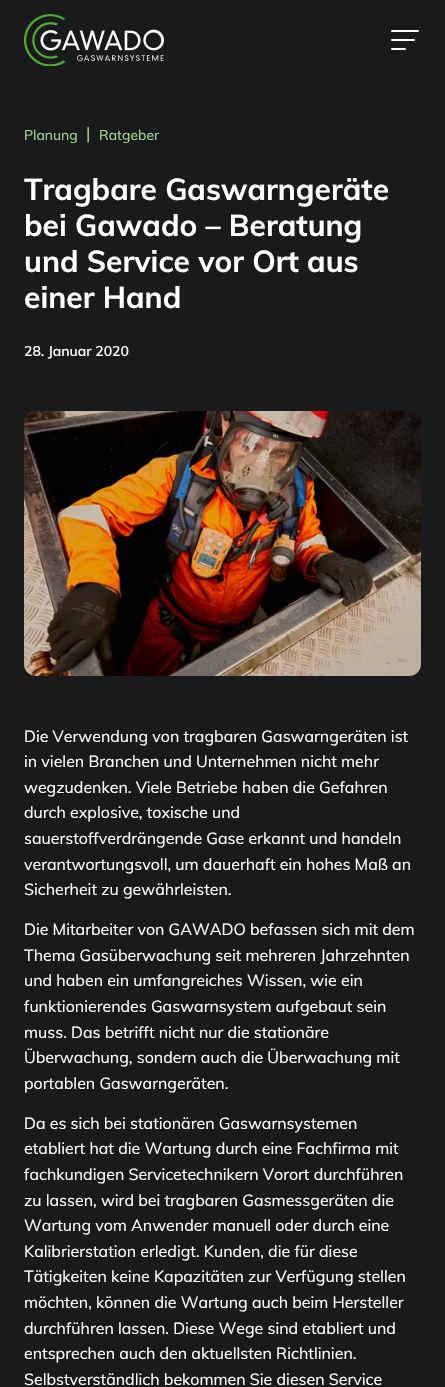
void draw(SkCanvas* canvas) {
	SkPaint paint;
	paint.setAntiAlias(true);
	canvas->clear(0xff191a1b);
	canvas->drawImageRect(SkImages::DeferredFromEncodedData(SkData::MakeFromFileName("img1.png")), SkRect::MakeXYWH(24, 14, 140, 52), SkSamplingOptions());
	canvas->drawImageRect(SkImages::DeferredFromEncodedData(SkData::MakeFromFileName("img2.png")), SkRect::MakeXYWH(391, 30, 28, 20), SkSamplingOptions());
	SkFont f1(fontMgr->matchFamilyStyle("Muli", SkFontStyle::Normal()), 14);
	f1.setSubpixel(true);
	paint.setColor(0xffa8d598);
	canvas->drawString("Planung", 24, 140, f1, paint);
	SkFont f2(fontMgr->matchFamilyStyle("Roboto", SkFontStyle::Normal()), 18);
	f2.setSubpixel(true);
	canvas->drawString("|", 86, 140, f2, paint);
	canvas->drawString("Ratgeber", 99, 140, f1, paint);
	SkFont f3(fontMgr->matchFamilyStyle("Muli", SkFontStyle::Bold()), 30);
	f3.setSubpixel(true);
	paint.setColor(0xffffffff);
	canvas->drawString("Tragbare Gaswarngeräte", 24, 200, f3, paint);
	canvas->drawString("bei Gawado – Beratung", 24, 236, f3, paint);
	canvas->drawString("und Service vor Ort aus", 24, 272, f3, paint);
	canvas->drawString("einer Hand", 24, 308, f3, paint);
	SkFont f4(fontMgr->matchFamilyStyle("Muli", SkFontStyle(600, SkFontStyle::kNormal_Width, SkFontStyle::kUpright_Slant)), 14);
	f4.setSubpixel(true);
	canvas->drawString("28. Januar 2020", 24, 356, f4, paint);
	canvas->drawImageRect(SkImages::DeferredFromEncodedData(SkData::MakeFromFileName("img3.png")), SkRect::MakeXYWH(24, 411, 397, 265), SkSamplingOptions());
	SkFont f5(fontMgr->matchFamilyStyle("Muli", SkFontStyle::Normal()), 16);
	f5.setSubpixel(true);
	canvas->drawString("Die Verwendung von tragbaren Gaswarngeräten ist", 24, 742, f5, paint);
	canvas->drawString("in vielen Branchen und Unternehmen nicht mehr", 24, 767, f5, paint);
	canvas->drawString("wegzudenken. Viele Betriebe haben die Gefahren", 24, 793, f5, paint);
	canvas->drawString("durch explosive, toxische und", 24, 818, f5, paint);
	canvas->drawString("sauerstoffverdrängende Gase erkannt und handeln", 24, 844, f5, paint);
	canvas->drawString("verantwortungsvoll, um dauerhaft ein hohes Maß an", 24, 870, f5, paint);
	canvas->drawString("Sicherheit zu gewährleisten.", 24, 895, f5, paint);
	canvas->drawString("Die Mitarbeiter von GAWADO befassen sich mit dem", 24, 935, f5, paint);
	canvas->drawString("Thema Gasüberwachung seit mehreren Jahrzehnten", 24, 961, f5, paint);
	canvas->drawString("und haben ein umfangreiches Wissen, wie ein", 24, 986, f5, paint);
	canvas->drawString("funktionierendes Gaswarnsystem aufgebaut sein", 24, 1012, f5, paint);
	canvas->drawString("muss. Das betrifft nicht nur die stationäre", 24, 1038, f5, paint);
	canvas->drawString("Überwachung, sondern auch die Überwachung mit", 24, 1063, f5, paint);
	canvas->drawString("portablen Gaswarngeräten.", 24, 1089, f5, paint);
	canvas->drawString("Da es sich bei stationären Gaswarnsystemen", 24, 1129, f5, paint);
	canvas->drawString("etabliert hat die Wartung durch eine Fachfirma mit", 24, 1154, f5, paint);
	canvas->drawString("fachkundigen Servicetechnikern Vorort durchführen", 24, 1180, f5, paint);
	canvas->drawString("zu lassen, wird bei tragbaren Gasmessgeräten die", 24, 1206, f5, paint);
	canvas->drawString("Wartung vom Anwender manuell oder durch eine", 24, 1231, f5, paint);
	canvas->drawString("Kalibrierstation erledigt. Kunden, die für diese", 24, 1257, f5, paint);
	canvas->drawString("Tätigkeiten keine Kapazitäten zur Verfügung stellen", 24, 1282, f5, paint);
	canvas->drawString("möchten, können die Wartung auch beim Hersteller", 24, 1308, f5, paint);
	canvas->drawString("durchführen lassen. Diese Wege sind etabliert und", 24, 1334, f5, paint);
	canvas->drawString("entsprechen auch den aktuellsten Richtlinien.", 24, 1359, f5, paint);
	canvas->drawString("Selbstverständlich bekommen Sie diesen Service", 24, 1385, f5, paint);
}
